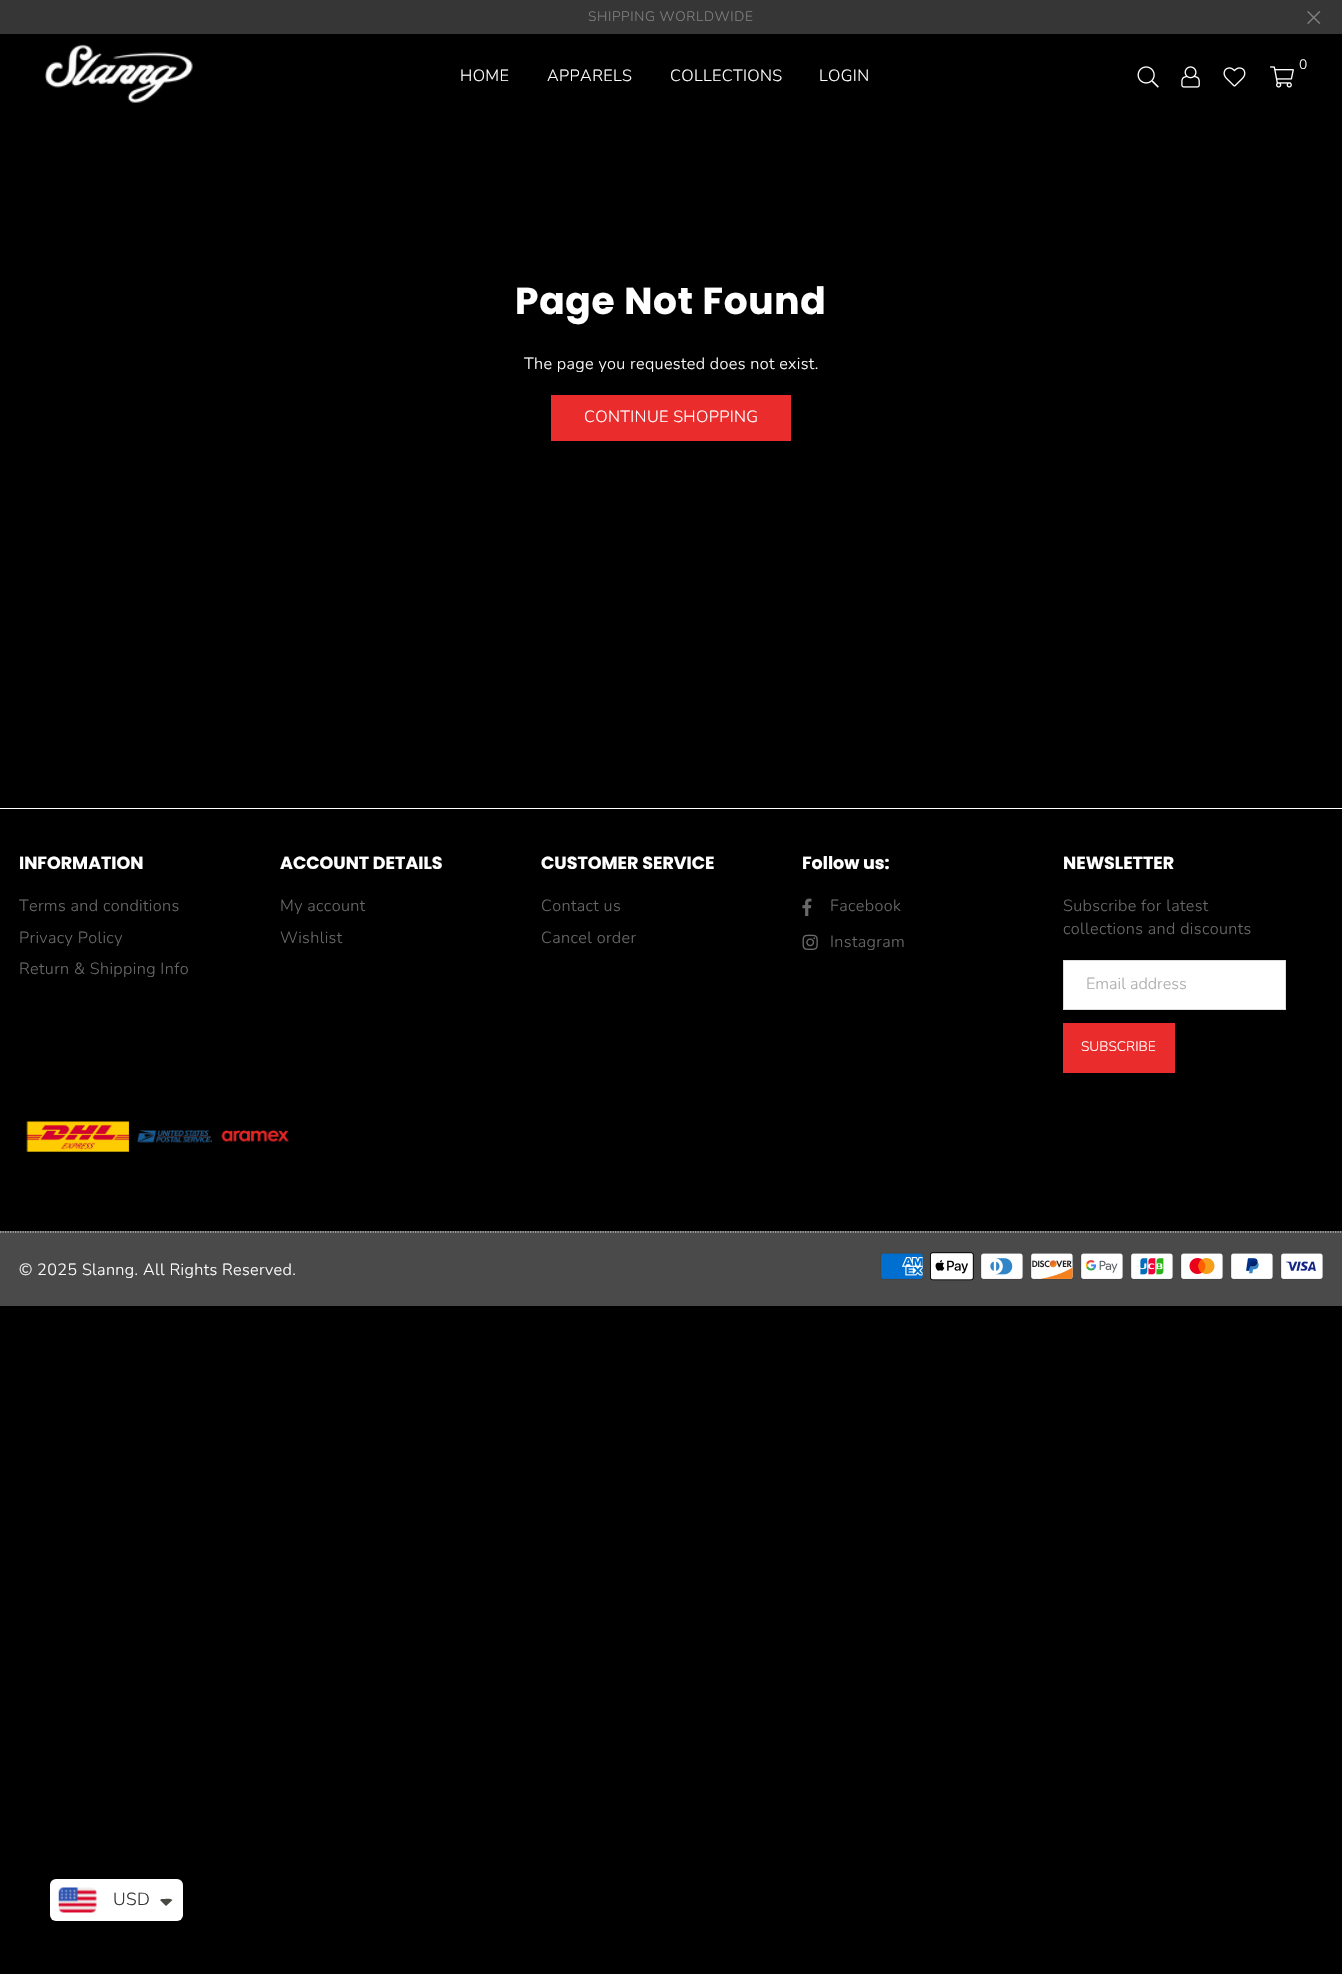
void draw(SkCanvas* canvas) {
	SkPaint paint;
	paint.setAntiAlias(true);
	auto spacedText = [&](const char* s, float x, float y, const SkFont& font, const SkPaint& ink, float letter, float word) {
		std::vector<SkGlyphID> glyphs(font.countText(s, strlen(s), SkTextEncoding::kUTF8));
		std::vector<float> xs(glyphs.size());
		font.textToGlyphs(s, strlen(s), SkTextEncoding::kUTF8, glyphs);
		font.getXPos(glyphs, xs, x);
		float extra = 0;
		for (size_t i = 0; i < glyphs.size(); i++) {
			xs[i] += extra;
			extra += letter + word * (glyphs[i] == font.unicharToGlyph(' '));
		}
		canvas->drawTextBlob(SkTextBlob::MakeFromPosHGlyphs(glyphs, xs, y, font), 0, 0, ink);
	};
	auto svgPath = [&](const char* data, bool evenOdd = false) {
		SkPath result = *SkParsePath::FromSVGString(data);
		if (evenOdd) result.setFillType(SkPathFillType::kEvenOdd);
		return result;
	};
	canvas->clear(0xff000000);
	paint.setColor(0xff363636);
	canvas->drawRect(SkRect::MakeXYWH(0, 0, 1342, 34), paint);
	SkFont f1(fontMgr->matchFamilyStyle("Nunito", SkFontStyle(300, SkFontStyle::kNormal_Width, SkFontStyle::kUpright_Slant)), 13.75);
	f1.setSubpixel(true);
	paint.setColor(0xff7f7f7f);
	spacedText("SHIPPING WORLDWIDE", 588, 21, f1, paint, 0.6, 0);
	canvas->drawImageRect(SkImages::DeferredFromEncodedData(SkData::MakeFromFileName("img1.png")), SkRect::MakeXYWH(1307, 11, 14, 13), SkSamplingOptions());
	canvas->drawImageRect(SkImages::DeferredFromEncodedData(SkData::MakeFromFileName("img2.png")), SkRect::MakeXYWH(45, 44, 148, 59), SkSamplingOptions());
	paint.setColor(0xffffffff);
	spacedText("0", 1299, 69, f1, paint, 0.35, 0);
	canvas->drawImageRect(SkImages::DeferredFromEncodedData(SkData::MakeFromFileName("img3.png")), SkRect::MakeXYWH(1270, 66, 24, 22), SkSamplingOptions());
	canvas->drawImageRect(SkImages::DeferredFromEncodedData(SkData::MakeFromFileName("img4.png")), SkRect::MakeXYWH(1137, 66, 22, 22), SkSamplingOptions());
	canvas->drawImageRect(SkImages::DeferredFromEncodedData(SkData::MakeFromFileName("img5.png")), SkRect::MakeXYWH(1181, 66, 19, 22), SkSamplingOptions());
	canvas->drawImageRect(SkImages::DeferredFromEncodedData(SkData::MakeFromFileName("img6.png")), SkRect::MakeXYWH(1223, 67, 23, 20), SkSamplingOptions());
	SkFont f2(fontMgr->matchFamilyStyle("Nunito", SkFontStyle(300, SkFontStyle::kNormal_Width, SkFontStyle::kUpright_Slant)), 16.25);
	f2.setSubpixel(true);
	spacedText("HOME", 460, 81, f2, paint, 0.35, 0);
	spacedText("APPARELS", 547, 81, f2, paint, 0.35, 0);
	spacedText("COLLECTIONS", 670, 81, f2, paint, 0.35, 0);
	spacedText("LOGIN", 819, 81, f2, paint, 0.35, 0);
	SkFont f3(fontMgr->matchFamilyStyle("Poppins", SkFontStyle::Bold()), 37.5);
	f3.setSubpixel(true);
	spacedText("Page Not Found", 515, 314, f3, paint, 0.75, 0);
	spacedText("The page you requested does not exist.", 524, 369, f2, paint, 0.35, 0);
	paint.setColor(0xffeb2c2c);
	canvas->drawRect(SkRect::MakeXYWH(551, 395, 240, 46), paint);
	paint.setColor(0xffffffff);
	spacedText("CONTINUE SHOPPING", 584, 422, f2, paint, 0.35, 0);
	canvas->drawRect(SkRect::MakeXYWH(0, 808, 1342, 1), paint);
	SkFont f4(fontMgr->matchFamilyStyle("Poppins", SkFontStyle::Bold()), 17.5);
	f4.setSubpixel(true);
	canvas->drawString("INFORMATION", 19, 869, f4, paint);
	paint.setColor(0xff696969);
	spacedText("Terms and conditions", 19, 911, f2, paint, 0.35, 0);
	spacedText("Privacy Policy", 19, 943, f2, paint, 0.35, 0);
	spacedText("Return & Shipping Info", 19, 974, f2, paint, 0.35, 0);
	paint.setColor(0xffffffff);
	canvas->drawString("ACCOUNT DETAILS", 280, 869, f4, paint);
	paint.setColor(0xff696969);
	spacedText("My account", 280, 911, f2, paint, 0.35, 0);
	spacedText("Wishlist", 280, 943, f2, paint, 0.35, 0);
	paint.setColor(0xffffffff);
	canvas->drawString("CUSTOMER SERVICE", 541, 869, f4, paint);
	paint.setColor(0xff696969);
	spacedText("Contact us", 541, 911, f2, paint, 0.35, 0);
	spacedText("Cancel order", 541, 943, f2, paint, 0.35, 0);
	paint.setColor(0xffffffff);
	canvas->drawString("Follow us:", 802, 869, f4, paint);
	canvas->drawImageRect(SkImages::DeferredFromEncodedData(SkData::MakeFromFileName("img7.png")), SkRect::MakeXYWH(802, 898, 10, 19), SkSamplingOptions());
	paint.setColor(0xff696969);
	spacedText("Facebook", 830, 911, f2, paint, 0.35, 0);
	canvas->drawImageRect(SkImages::DeferredFromEncodedData(SkData::MakeFromFileName("img8.png")), SkRect::MakeXYWH(802, 934, 16, 16), SkSamplingOptions());
	spacedText("Instagram", 830, 947, f2, paint, 0.35, 0);
	paint.setColor(0xffffffff);
	canvas->drawString("NEWSLETTER", 1063, 869, f4, paint);
	paint.setColor(0xff696969);
	spacedText("Subscribe for latest", 1063, 911, f2, paint, 0.35, 0);
	spacedText("collections and discounts", 1063, 934, f2, paint, 0.35, 0);
	paint.setColor(0xffffffff);
	canvas->drawRect(SkRect::MakeXYWH(1063.5, 960.5, 222, 49), paint);
	paint.setStroke(true);
	paint.setStrokeWidth(1);
	paint.setColor(0xffdddddd);
	canvas->drawRect(SkRect::MakeXYWH(1063.5, 960.5, 222, 49), paint);
	paint.setStroke(false);
	paint.setColor(0xffacacac);
	canvas->drawString("Email address", 1086, 989, f2, paint);
	paint.setColor(0xffeb2c2c);
	canvas->drawRect(SkRect::MakeXYWH(1063, 1023, 112, 50), paint);
	paint.setColor(0xffffffff);
	canvas->drawString("SUBSCRIBE", 1081, 1051, f1, paint);
	canvas->drawImageRect(SkImages::DeferredFromEncodedData(SkData::MakeFromFileName("img9.png")), SkRect::MakeXYWH(26, 1121, 263, 31), SkSamplingOptions());
	paint.setColor(0xff4a4a4a);
	canvas->drawRect(SkRect::MakeXYWH(0, 1231, 1342, 75), paint);
	paint.setStroke(true);
	paint.setStrokeWidth(1.2);
	paint.setColor(0xffeeeeee);
	paint.setPathEffect(SkDashPathEffect::Make({{1.25f, 1.25f}}, 0));
	canvas->drawPath(svgPath("M0 1232H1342.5"), paint);
	paint.setPathEffect(nullptr);
	paint.setStroke(false);
	paint.setColor(0xffffffff);
	spacedText("© 2025 Slanng. All Rights Reserved.", 19, 1275, f2, paint, 0.35, 0);
	canvas->drawImageRect(SkImages::DeferredFromEncodedData(SkData::MakeFromFileName("img10.png")), SkRect::MakeXYWH(880, 1253, 43, 27), SkSamplingOptions());
	canvas->drawImageRect(SkImages::DeferredFromEncodedData(SkData::MakeFromFileName("img11.png")), SkRect::MakeXYWH(930, 1252, 44, 29), SkSamplingOptions());
	canvas->drawImageRect(SkImages::DeferredFromEncodedData(SkData::MakeFromFileName("img12.png")), SkRect::MakeXYWH(980, 1253, 43, 27), SkSamplingOptions());
	canvas->drawImageRect(SkImages::DeferredFromEncodedData(SkData::MakeFromFileName("img13.png")), SkRect::MakeXYWH(1030, 1253, 43, 27), SkSamplingOptions());
	canvas->drawImageRect(SkImages::DeferredFromEncodedData(SkData::MakeFromFileName("img14.png")), SkRect::MakeXYWH(1080, 1253, 43, 27), SkSamplingOptions());
	canvas->drawImageRect(SkImages::DeferredFromEncodedData(SkData::MakeFromFileName("img15.png")), SkRect::MakeXYWH(1130, 1253, 43, 27), SkSamplingOptions());
	canvas->drawImageRect(SkImages::DeferredFromEncodedData(SkData::MakeFromFileName("img16.png")), SkRect::MakeXYWH(1180, 1253, 43, 27), SkSamplingOptions());
	canvas->drawImageRect(SkImages::DeferredFromEncodedData(SkData::MakeFromFileName("img17.png")), SkRect::MakeXYWH(1230, 1253, 43, 27), SkSamplingOptions());
	canvas->drawImageRect(SkImages::DeferredFromEncodedData(SkData::MakeFromFileName("img18.png")), SkRect::MakeXYWH(1280, 1253, 43, 27), SkSamplingOptions());
	canvas->drawRoundRect(SkRect::MakeXYWH(50, 1879, 133, 42), 6, 6, paint);
	canvas->drawImageRect(SkImages::DeferredFromEncodedData(SkData::MakeFromFileName("img19.png")), SkRect::MakeXYWH(58, 1887, 39, 26), SkSamplingOptions());
	SkFont f5(fontMgr->matchFamilyStyle("Nunito", SkFontStyle(300, SkFontStyle::kNormal_Width, SkFontStyle::kUpright_Slant)), 17.5);
	f5.setSubpixel(true);
	paint.setColor(0xff333333);
	spacedText("USD", 113, 1905, f5, paint, 0.35, 0);
	paint.setColor(0xff474942);
	canvas->drawPath(svgPath("M162.5 1899C165 1899 170.5 1898 172.5 1900L166 1906L160 1900C160.5 1899.5 161.5 1899 162.5 1899Z"), paint);
}
